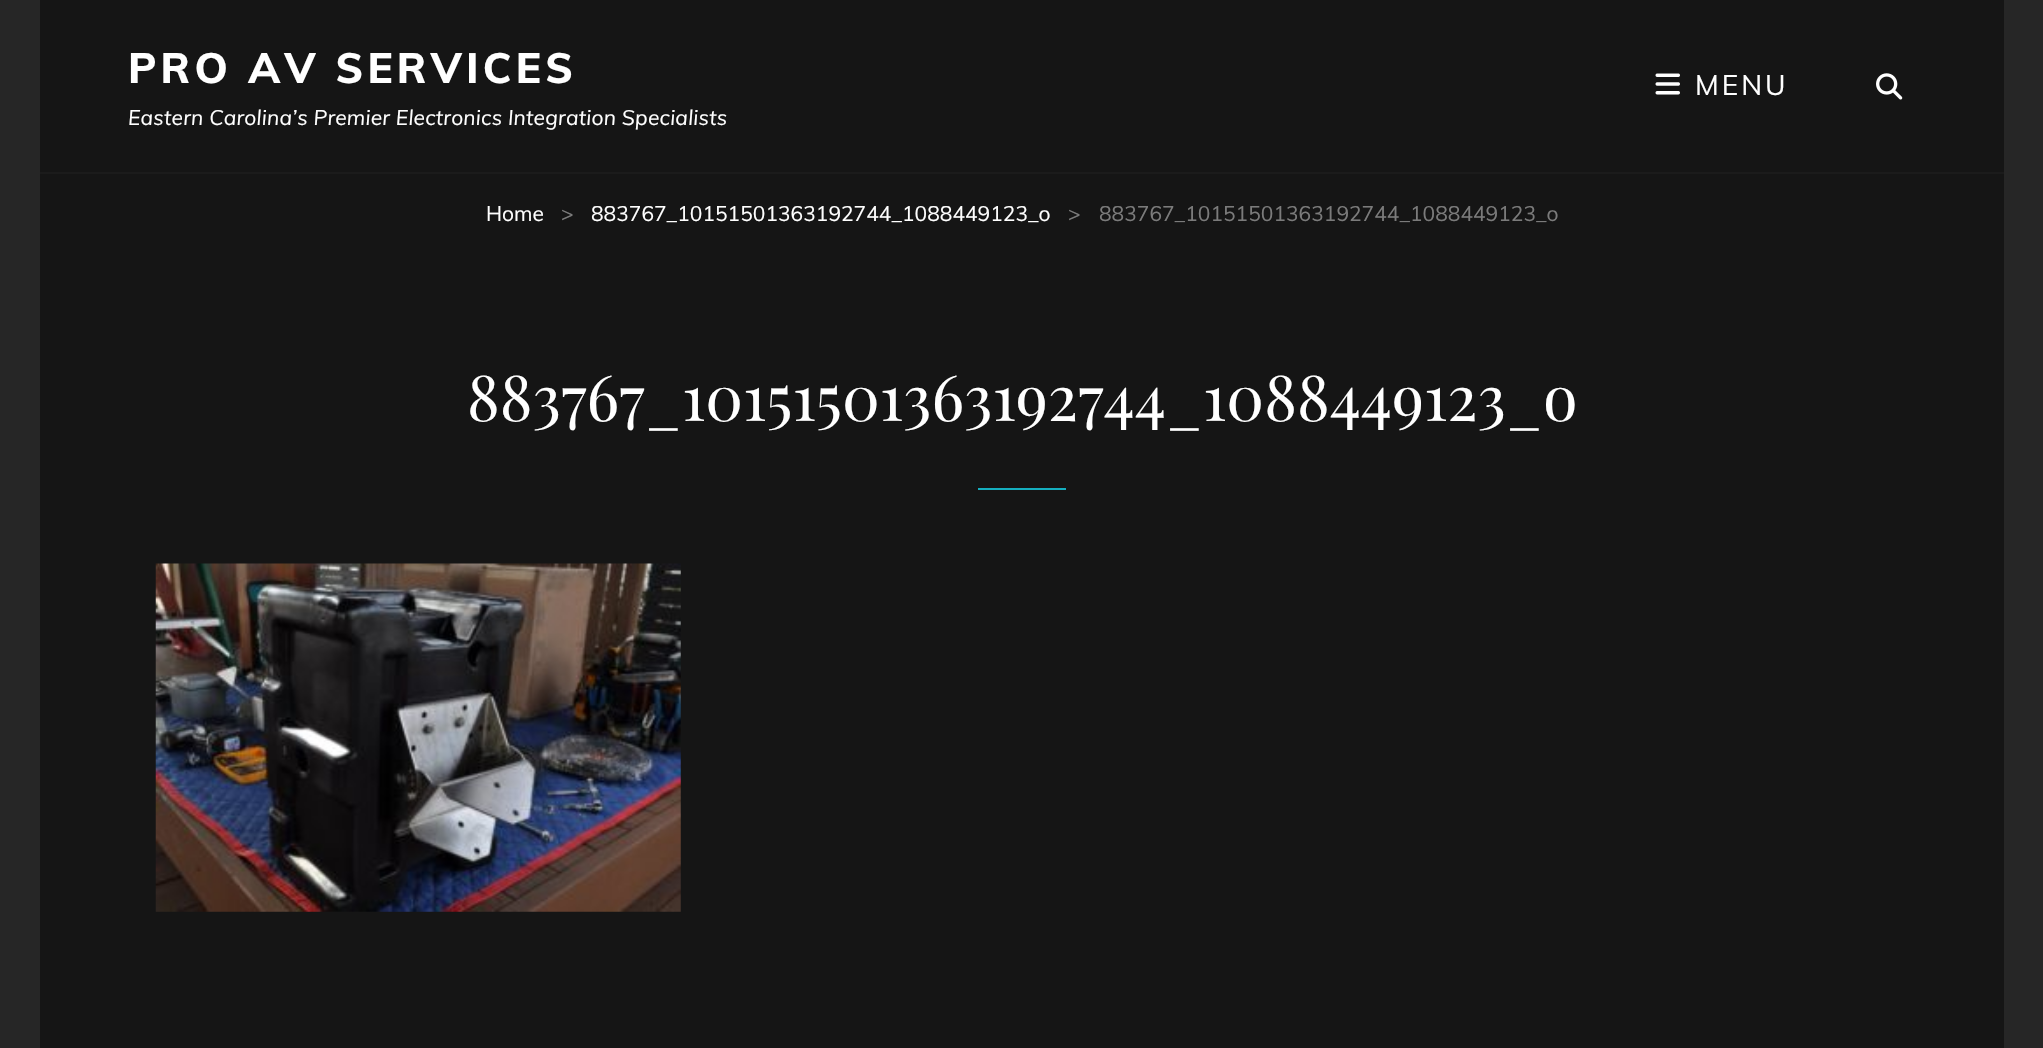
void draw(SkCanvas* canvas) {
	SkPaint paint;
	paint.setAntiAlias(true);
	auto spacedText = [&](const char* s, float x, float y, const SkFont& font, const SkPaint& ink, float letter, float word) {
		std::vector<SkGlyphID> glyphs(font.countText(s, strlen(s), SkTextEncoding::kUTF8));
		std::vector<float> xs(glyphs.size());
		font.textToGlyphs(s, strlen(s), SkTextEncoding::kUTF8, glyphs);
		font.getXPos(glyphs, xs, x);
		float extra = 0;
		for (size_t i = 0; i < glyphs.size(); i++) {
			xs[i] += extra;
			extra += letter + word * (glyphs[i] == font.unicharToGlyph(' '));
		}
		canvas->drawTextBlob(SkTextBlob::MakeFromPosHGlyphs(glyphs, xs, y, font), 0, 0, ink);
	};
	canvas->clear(0xff262626);
	paint.setColor(0xff151515);
	canvas->drawRect(SkRect::MakeXYWH(40, 0, 1964, 1048), paint);
	paint.setColor(0xff1b1b1b);
	canvas->drawRect(SkRect::MakeXYWH(40, 172, 1964, 2), paint);
	SkFont f1(fontMgr->matchFamilyStyle("Muli", SkFontStyle(800, SkFontStyle::kNormal_Width, SkFontStyle::kUpright_Slant)), 42);
	f1.setSubpixel(true);
	paint.setColor(0xffffffff);
	spacedText("PRO AV SERVICES", 128, 83, f1, paint, 4.25, 0);
	SkFont f2(fontMgr->matchFamilyStyle("Muli", SkFontStyle::Italic()), 21);
	f2.setSubpixel(true);
	spacedText("Eastern Carolina’s Premier Electronics Integration Specialists", 128, 125, f2, paint, 0.2, 0);
	canvas->drawImageRect(SkImages::DeferredFromEncodedData(SkData::MakeFromFileName("img1.png")), SkRect::MakeXYWH(1655, 73, 25, 22), SkSamplingOptions());
	SkFont f3(fontMgr->matchFamilyStyle("Muli", SkFontStyle::Normal()), 28);
	f3.setSubpixel(true);
	spacedText("MENU", 1695, 95, f3, paint, 3, 0);
	canvas->drawImageRect(SkImages::DeferredFromEncodedData(SkData::MakeFromFileName("img2.png")), SkRect::MakeXYWH(1876, 73, 27, 27), SkSamplingOptions());
	SkFont f4(fontMgr->matchFamilyStyle("Muli", SkFontStyle::Normal()), 21);
	f4.setSubpixel(true);
	canvas->drawString("Home", 486, 221, f4, paint);
	paint.setColor(0xff7b7b7b);
	canvas->drawString(">", 561, 221, f4, paint);
	paint.setColor(0xffffffff);
	canvas->drawString("883767_10151501363192744_1088449123_o", 591, 221, f4, paint);
	paint.setColor(0xff7b7b7b);
	canvas->drawString(">", 1068, 221, f4, paint);
	canvas->drawString("883767_10151501363192744_1088449123_o", 1099, 221, f4, paint);
	SkFont f5(fontMgr->matchFamilyStyle("Playfair Display", SkFontStyle::Normal()), 63);
	f5.setSubpixel(true);
	paint.setColor(0xffffffff);
	canvas->drawString("883767_10151501363192744_1088449123_o", 467, 421, f5, paint);
	paint.setColor(0xff15aebf);
	canvas->drawRect(SkRect::MakeXYWH(978, 488, 88, 2), paint);
	canvas->drawImageRect(SkImages::DeferredFromEncodedData(SkData::MakeFromFileName("img3.png")), SkRect::MakeXYWH(155, 563, 526, 349), SkSamplingOptions());
}
